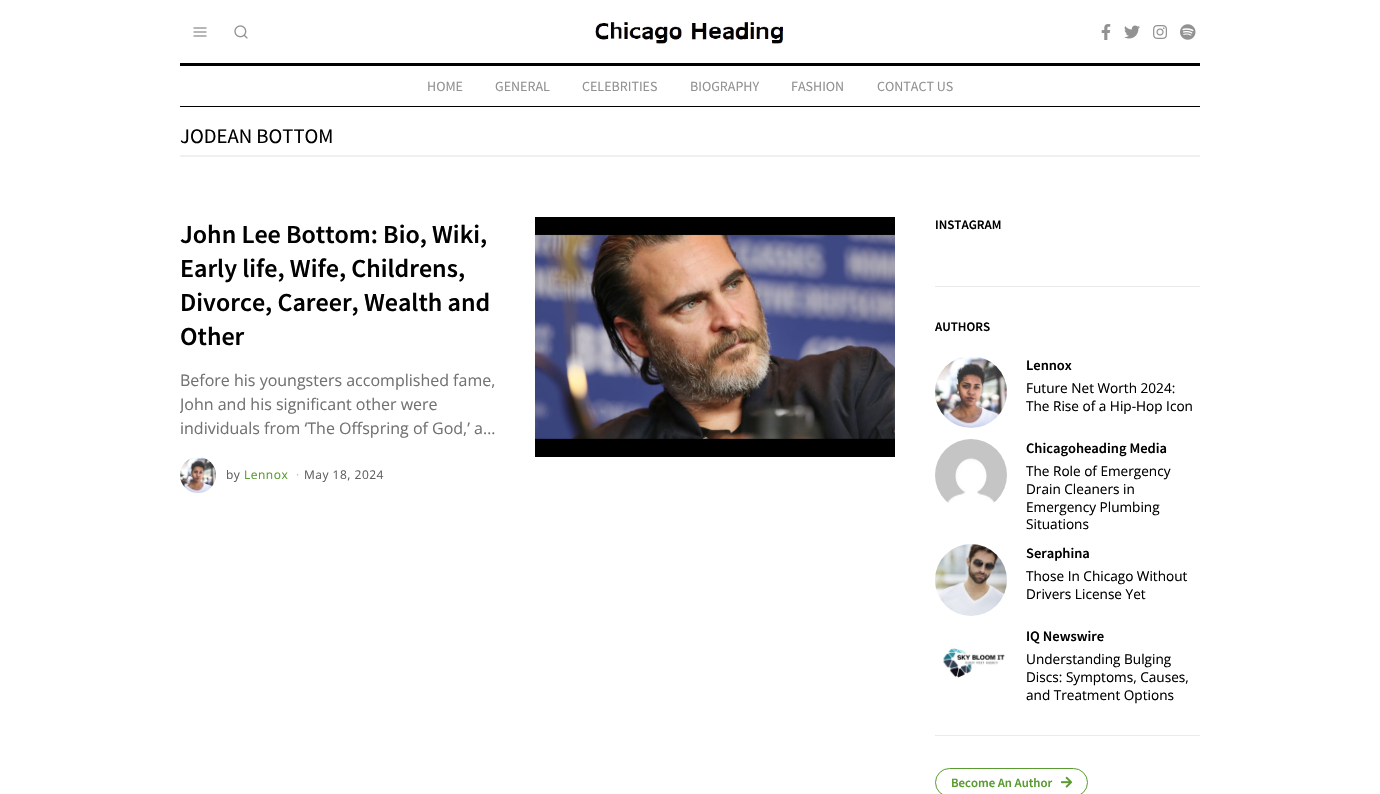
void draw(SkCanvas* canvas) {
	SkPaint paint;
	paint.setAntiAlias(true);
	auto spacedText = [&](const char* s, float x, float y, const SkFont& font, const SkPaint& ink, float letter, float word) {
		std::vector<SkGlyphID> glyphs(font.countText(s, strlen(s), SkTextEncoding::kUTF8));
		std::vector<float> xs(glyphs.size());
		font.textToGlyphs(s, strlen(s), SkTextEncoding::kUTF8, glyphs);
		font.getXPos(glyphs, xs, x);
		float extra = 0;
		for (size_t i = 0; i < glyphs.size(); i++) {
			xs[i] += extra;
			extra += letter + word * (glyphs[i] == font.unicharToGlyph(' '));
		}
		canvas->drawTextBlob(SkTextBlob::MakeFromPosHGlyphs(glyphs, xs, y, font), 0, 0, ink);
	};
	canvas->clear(0xffffffff);
	canvas->drawImageRect(SkImages::DeferredFromEncodedData(SkData::MakeFromFileName("img1.png")), SkRect::MakeXYWH(193, 27, 14, 10), SkSamplingOptions());
	canvas->drawImageRect(SkImages::DeferredFromEncodedData(SkData::MakeFromFileName("img2.png")), SkRect::MakeXYWH(234, 25, 14, 14), SkSamplingOptions());
	canvas->drawImageRect(SkImages::DeferredFromEncodedData(SkData::MakeFromFileName("img3.png")), SkRect::MakeXYWH(595, 22, 188, 22), SkSamplingOptions());
	canvas->drawImageRect(SkImages::DeferredFromEncodedData(SkData::MakeFromFileName("img4.png")), SkRect::MakeXYWH(1101, 24, 10, 16), SkSamplingOptions());
	canvas->drawImageRect(SkImages::DeferredFromEncodedData(SkData::MakeFromFileName("img5.png")), SkRect::MakeXYWH(1124, 25, 16, 14), SkSamplingOptions());
	canvas->drawImageRect(SkImages::DeferredFromEncodedData(SkData::MakeFromFileName("img6.png")), SkRect::MakeXYWH(1153, 25, 14, 14), SkSamplingOptions());
	canvas->drawImageRect(SkImages::DeferredFromEncodedData(SkData::MakeFromFileName("img7.png")), SkRect::MakeXYWH(1180, 24, 16, 16), SkSamplingOptions());
	paint.setColor(0xff000000);
	canvas->drawRect(SkRect::MakeXYWH(180, 63, 1020, 3), paint);
	canvas->drawRect(SkRect::MakeXYWH(180, 106, 1020, 1), paint);
	SkFont f1(fontMgr->matchFamilyStyle("Source Sans Pro", SkFontStyle::Normal()), 14);
	f1.setSubpixel(true);
	paint.setColor(0xff929292);
	canvas->drawString("HOME", 427, 91, f1, paint);
	canvas->drawString("GENERAL", 495, 91, f1, paint);
	canvas->drawString("CELEBRITIES", 582, 91, f1, paint);
	canvas->drawString("BIOGRAPHY", 690, 91, f1, paint);
	canvas->drawString("FASHION", 791, 91, f1, paint);
	canvas->drawString("CONTACT US", 877, 91, f1, paint);
	paint.setColor(0xfff0f0f0);
	canvas->drawRect(SkRect::MakeXYWH(180, 155, 1020, 2), paint);
	SkFont f2(fontMgr->matchFamilyStyle("Source Sans Pro", SkFontStyle::Normal()), 20.75);
	f2.setSubpixel(true);
	paint.setColor(0xff000000);
	canvas->drawString("JODEAN BOTTOM", 180, 143, f2, paint);
	SkFont f3(fontMgr->matchFamilyStyle("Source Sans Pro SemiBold", SkFontStyle(600, SkFontStyle::kNormal_Width, SkFontStyle::kUpright_Slant)), 26);
	f3.setSubpixel(true);
	canvas->drawString("John Lee Bottom: Bio, Wiki,", 180, 243, f3, paint);
	canvas->drawString("Early life, Wife, Childrens,", 180, 277, f3, paint);
	canvas->drawString("Divorce, Career, Wealth and", 180, 311, f3, paint);
	canvas->drawString("Other", 180, 345, f3, paint);
	SkFont f4(fontMgr->matchFamilyStyle("Open Sans", SkFontStyle::Normal()), 16);
	f4.setSubpixel(true);
	paint.setColor(0xff727272);
	canvas->drawString("Before his youngsters accomplished fame,", 180, 386, f4, paint);
	canvas->save();
	canvas->clipRect(SkRect::MakeXYWH(180, 217, 355, 276));
	canvas->drawString("John and his significant other were", 180, 410, f4, paint);
	canvas->restore();
	canvas->drawString("individuals from ‘The Offspring of God,’ a…", 180, 434, f4, paint);
	canvas->drawImageRect(SkImages::DeferredFromEncodedData(SkData::MakeFromFileName("img8.png")), SkRect::MakeXYWH(180, 457, 36, 36), SkSamplingOptions());
	SkFont f5(fontMgr->matchFamilyStyle("Open Sans", SkFontStyle::Normal()), 12);
	f5.setSubpixel(true);
	paint.setColor(0xff606060);
	spacedText("by", 226, 479, f5, paint, 0.5, 0);
	paint.setColor(0xff599b30);
	spacedText("Lennox", 244, 479, f5, paint, 0.5, 0);
	paint.setColor(0xffbfbfbf);
	spacedText("·", 296, 479, f5, paint, 0.5, 0);
	paint.setColor(0xff606060);
	spacedText("May 18, 2024", 304, 479, f5, paint, 0.5, 0);
	canvas->drawImageRect(SkImages::DeferredFromEncodedData(SkData::MakeFromFileName("img9.png")), SkRect::MakeXYWH(535, 217, 360, 240), SkSamplingOptions());
	SkFont f6(fontMgr->matchFamilyStyle("Source Sans Pro SemiBold", SkFontStyle(600, SkFontStyle::kNormal_Width, SkFontStyle::kUpright_Slant)), 13);
	f6.setSubpixel(true);
	paint.setColor(0xff000000);
	canvas->drawString("INSTAGRAM", 935, 229, f6, paint);
	paint.setColor(0xffeaeaea);
	canvas->drawRect(SkRect::MakeXYWH(935, 286, 265, 1), paint);
	paint.setColor(0xff000000);
	canvas->drawString("AUTHORS", 935, 331, f6, paint);
	canvas->drawImageRect(SkImages::DeferredFromEncodedData(SkData::MakeFromFileName("img10.png")), SkRect::MakeXYWH(935, 357, 72, 71), SkSamplingOptions());
	SkFont f7(fontMgr->matchFamilyStyle("Source Sans Pro SemiBold", SkFontStyle(600, SkFontStyle::kNormal_Width, SkFontStyle::kUpright_Slant)), 14.5);
	f7.setSubpixel(true);
	canvas->drawString("Lennox", 1026, 370, f7, paint);
	SkFont f8(fontMgr->matchFamilyStyle("Open Sans", SkFontStyle::Normal()), 13.6);
	f8.setSubpixel(true);
	canvas->drawString("Future Net Worth 2024:", 1026, 393, f8, paint);
	canvas->save();
	canvas->clipRect(SkRect::MakeXYWH(1026, 356, 174, 58));
	canvas->drawString("The Rise of a Hip-Hop Icon", 1026, 411, f8, paint);
	canvas->restore();
	canvas->drawImageRect(SkImages::DeferredFromEncodedData(SkData::MakeFromFileName("img11.png")), SkRect::MakeXYWH(935, 439, 72, 64), SkSamplingOptions());
	canvas->drawString("Chicagoheading Media", 1026, 453, f7, paint);
	canvas->drawString("The Role of Emergency", 1026, 476, f8, paint);
	canvas->drawString("Drain Cleaners in", 1026, 494, f8, paint);
	canvas->drawString("Emergency Plumbing", 1026, 512, f8, paint);
	canvas->drawString("Situations", 1026, 529, f8, paint);
	canvas->drawImageRect(SkImages::DeferredFromEncodedData(SkData::MakeFromFileName("img12.png")), SkRect::MakeXYWH(935, 544, 72, 72), SkSamplingOptions());
	canvas->drawString("Seraphina", 1026, 558, f7, paint);
	canvas->drawString("Those In Chicago Without", 1026, 581, f8, paint);
	canvas->drawString("Drivers License Yet", 1026, 599, f8, paint);
	canvas->drawImageRect(SkImages::DeferredFromEncodedData(SkData::MakeFromFileName("img13.png")), SkRect::MakeXYWH(943, 648, 62, 30), SkSamplingOptions());
	canvas->drawString("IQ Newswire", 1026, 641, f7, paint);
	canvas->drawString("Understanding Bulging", 1026, 664, f8, paint);
	canvas->drawString("Discs: Symptoms, Causes,", 1026, 682, f8, paint);
	canvas->drawString("and Treatment Options", 1026, 700, f8, paint);
	paint.setColor(0xffeaeaea);
	canvas->drawRect(SkRect::MakeXYWH(935, 735, 265, 1), paint);
	paint.setStroke(true);
	paint.setStrokeWidth(1);
	paint.setColor(0xff599b30);
	canvas->drawRoundRect(SkRect::MakeXYWH(935.5, 768.5, 152, 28), 14, 14, paint);
	SkFont f9(fontMgr->matchFamilyStyle("Source Sans Pro SemiBold", SkFontStyle(600, SkFontStyle::kNormal_Width, SkFontStyle::kUpright_Slant)), 12.75);
	f9.setSubpixel(true);
	paint.setStroke(false);
	canvas->drawString("Become An Author", 951, 787, f9, paint);
	canvas->drawImageRect(SkImages::DeferredFromEncodedData(SkData::MakeFromFileName("img14.png")), SkRect::MakeXYWH(1061, 776, 12, 12), SkSamplingOptions());
}
